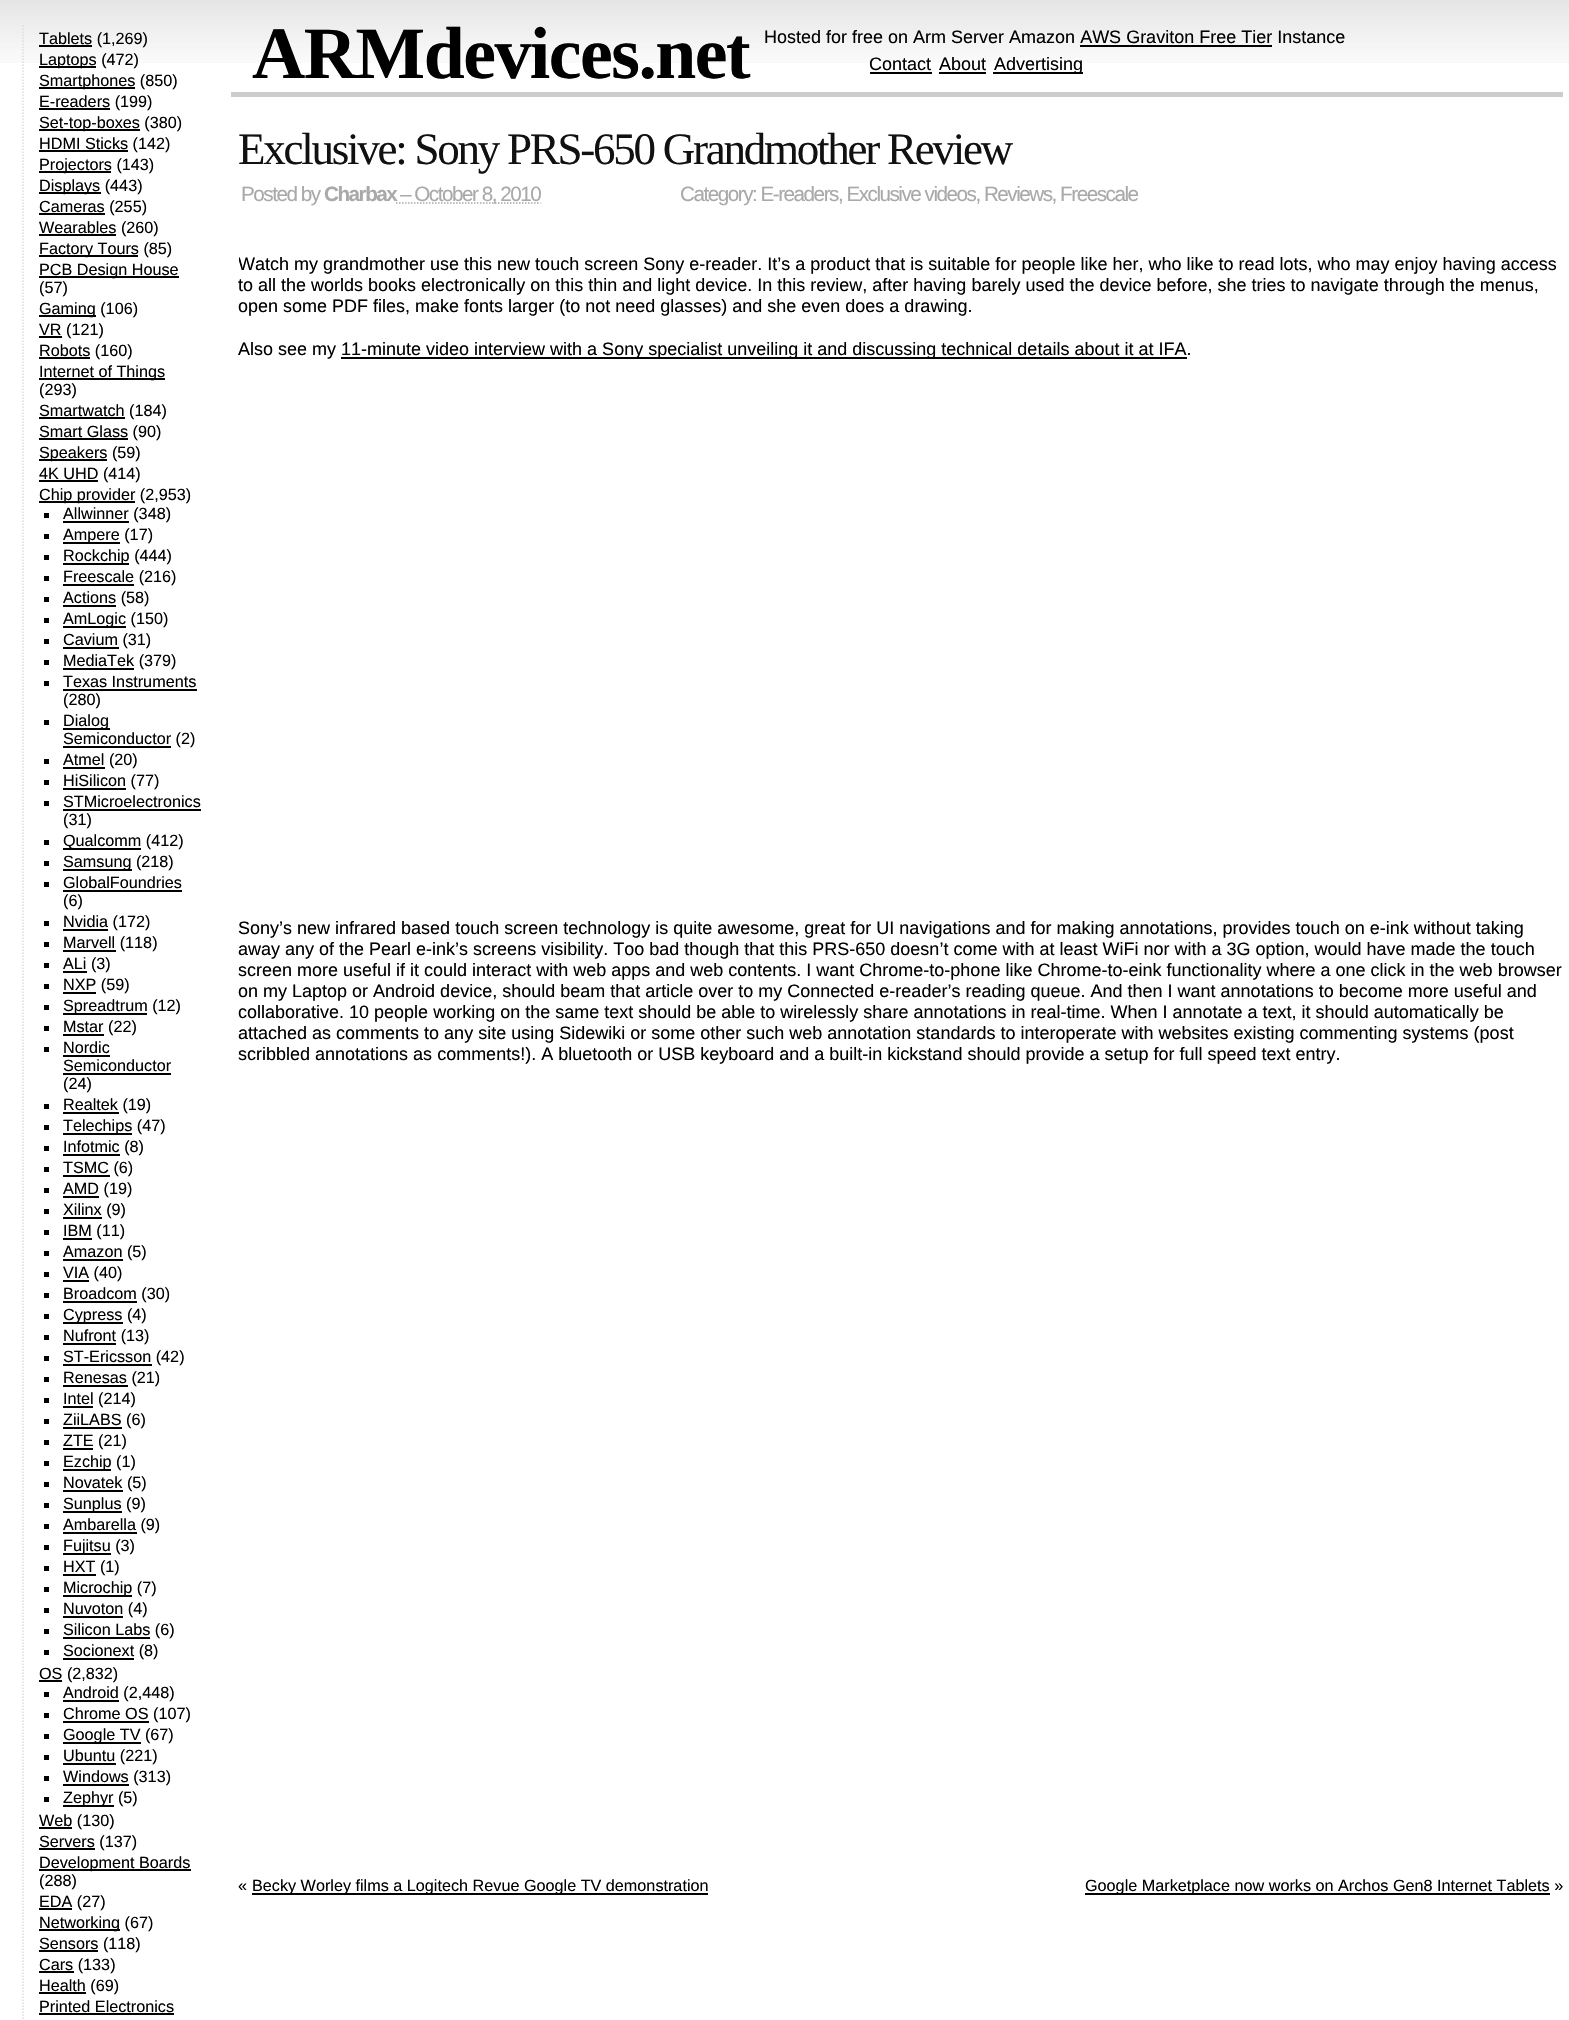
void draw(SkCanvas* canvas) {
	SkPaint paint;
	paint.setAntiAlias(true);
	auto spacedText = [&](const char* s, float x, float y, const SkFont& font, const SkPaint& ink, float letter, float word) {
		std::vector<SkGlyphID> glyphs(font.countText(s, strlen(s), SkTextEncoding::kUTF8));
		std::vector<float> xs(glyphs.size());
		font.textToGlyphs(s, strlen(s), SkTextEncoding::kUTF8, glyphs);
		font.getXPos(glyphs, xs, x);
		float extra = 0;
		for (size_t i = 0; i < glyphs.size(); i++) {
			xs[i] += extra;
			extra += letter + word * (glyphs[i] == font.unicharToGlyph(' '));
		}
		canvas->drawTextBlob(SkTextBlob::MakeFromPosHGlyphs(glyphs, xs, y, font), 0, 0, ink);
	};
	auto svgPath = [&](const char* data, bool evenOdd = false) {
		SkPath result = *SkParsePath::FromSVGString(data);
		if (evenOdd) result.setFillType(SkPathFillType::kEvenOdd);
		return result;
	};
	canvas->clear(0xffffffff);
	canvas->drawImageRect(SkImages::DeferredFromEncodedData(SkData::MakeFromFileName("img1.png")), SkRect::MakeXYWH(0, 0, 1569, 63), SkSamplingOptions());
	SkFont f1(fontMgr->matchFamilyStyle("Liberation Serif", SkFontStyle::Bold()), 73.75);
	f1.setSubpixel(true);
	paint.setColor(0xff000000);
	spacedText("ARMdevices.net", 252, 78, f1, paint, -1.5, 0);
	SkFont f2(fontMgr->matchFamilyStyle("Liberation Sans", SkFontStyle::Normal()), 18);
	f2.setSubpixel(true);
	canvas->drawString("Hosted for free on Arm Server Amazon AWS Graviton Free Tier Instance", 764, 43, f2, paint);
	canvas->drawRect(SkRect::MakeXYWH(1080, 45, 192, 2), paint);
	canvas->drawString("Contact", 869, 70, f2, paint);
	canvas->drawRect(SkRect::MakeXYWH(870, 72, 62, 2), paint);
	canvas->drawString("About", 939, 70, f2, paint);
	canvas->drawRect(SkRect::MakeXYWH(939, 72, 47, 2), paint);
	canvas->drawRect(SkRect::MakeXYWH(993, 72, 90, 2), paint);
	canvas->drawString("Advertising", 994, 70, f2, paint);
	paint.setStroke(true);
	paint.setStrokeWidth(1.5);
	paint.setColor(0xffdddddd);
	paint.setPathEffect(SkDashPathEffect::Make({{1.5f, 1.5f}}, 0));
	canvas->drawPath(svgPath("M23 25.5V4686"), paint);
	paint.setPathEffect(nullptr);
	paint.setStroke(false);
	paint.setColor(0xff000000);
	canvas->drawRect(SkRect::MakeXYWH(39, 45, 53, 2), paint);
	SkFont f3(fontMgr->matchFamilyStyle("Liberation Sans", SkFontStyle::Normal()), 16.2);
	f3.setSubpixel(true);
	canvas->drawString("Tablets (1,269)", 39, 44, f3, paint);
	canvas->drawRect(SkRect::MakeXYWH(39, 66, 57, 2), paint);
	canvas->drawString("Laptops (472)", 39, 65, f3, paint);
	canvas->drawRect(SkRect::MakeXYWH(39, 87, 96, 2), paint);
	canvas->drawString("Smartphones (850)", 39, 86, f3, paint);
	canvas->drawRect(SkRect::MakeXYWH(39, 108, 71, 2), paint);
	canvas->drawString("E-readers (199)", 39, 107, f3, paint);
	canvas->drawRect(SkRect::MakeXYWH(39, 129, 101, 2), paint);
	canvas->drawString("Set-top-boxes (380)", 39, 128, f3, paint);
	canvas->drawRect(SkRect::MakeXYWH(39, 150, 89, 2), paint);
	canvas->drawString("HDMI Sticks (142)", 39, 149, f3, paint);
	canvas->drawRect(SkRect::MakeXYWH(39, 171, 72, 2), paint);
	canvas->drawString("Projectors (143)", 39, 170, f3, paint);
	canvas->drawRect(SkRect::MakeXYWH(39, 192, 62, 2), paint);
	canvas->drawString("Displays (443)", 39, 191, f3, paint);
	canvas->drawRect(SkRect::MakeXYWH(39, 213, 66, 2), paint);
	canvas->drawString("Cameras (255)", 39, 212, f3, paint);
	canvas->drawRect(SkRect::MakeXYWH(39, 234, 77, 2), paint);
	canvas->drawString("Wearables (260)", 39, 233, f3, paint);
	canvas->drawRect(SkRect::MakeXYWH(39, 255, 99, 2), paint);
	canvas->drawString("Factory Tours (85)", 39, 254, f3, paint);
	canvas->drawRect(SkRect::MakeXYWH(39, 276, 140, 2), paint);
	canvas->drawString("PCB Design House", 39, 275, f3, paint);
	canvas->drawString("(57)", 39, 293, f3, paint);
	canvas->drawRect(SkRect::MakeXYWH(39, 315, 57, 2), paint);
	canvas->drawString("Gaming (106)", 39, 314, f3, paint);
	canvas->drawRect(SkRect::MakeXYWH(39, 336, 23, 2), paint);
	canvas->drawString("VR (121)", 39, 335, f3, paint);
	canvas->drawRect(SkRect::MakeXYWH(39, 357, 51, 2), paint);
	canvas->drawString("Robots (160)", 39, 356, f3, paint);
	canvas->drawRect(SkRect::MakeXYWH(39, 378, 126, 2), paint);
	canvas->drawString("Internet of Things", 39, 377, f3, paint);
	canvas->drawString("(293)", 39, 395, f3, paint);
	canvas->drawRect(SkRect::MakeXYWH(39, 417, 86, 2), paint);
	canvas->drawString("Smartwatch (184)", 39, 416, f3, paint);
	canvas->drawRect(SkRect::MakeXYWH(39, 438, 89, 2), paint);
	canvas->drawString("Smart Glass (90)", 39, 437, f3, paint);
	canvas->drawRect(SkRect::MakeXYWH(39, 459, 68, 2), paint);
	canvas->drawString("Speakers (59)", 39, 458, f3, paint);
	canvas->drawRect(SkRect::MakeXYWH(39, 480, 59, 2), paint);
	canvas->drawString("4K UHD (414)", 39, 479, f3, paint);
	canvas->drawRect(SkRect::MakeXYWH(39, 501, 96, 2), paint);
	canvas->drawString("Chip provider (2,953)", 39, 500, f3, paint);
	canvas->drawRect(SkRect::MakeXYWH(44, 513, 5, 5), paint);
	canvas->drawRect(SkRect::MakeXYWH(63, 521, 66, 2), paint);
	canvas->drawString("Allwinner (348)", 63, 519, f3, paint);
	canvas->drawRect(SkRect::MakeXYWH(44, 534, 5, 5), paint);
	canvas->drawRect(SkRect::MakeXYWH(63, 542, 57, 2), paint);
	canvas->drawString("Ampere (17)", 63, 540, f3, paint);
	canvas->drawRect(SkRect::MakeXYWH(44, 555, 5, 5), paint);
	canvas->drawRect(SkRect::MakeXYWH(63, 563, 66, 2), paint);
	canvas->drawString("Rockchip (444)", 63, 561, f3, paint);
	canvas->drawRect(SkRect::MakeXYWH(44, 576, 5, 5), paint);
	canvas->drawRect(SkRect::MakeXYWH(63, 584, 71, 2), paint);
	canvas->drawString("Freescale (216)", 63, 582, f3, paint);
	canvas->drawRect(SkRect::MakeXYWH(44, 597, 5, 5), paint);
	canvas->drawRect(SkRect::MakeXYWH(63, 605, 53, 2), paint);
	canvas->drawString("Actions (58)", 63, 603, f3, paint);
	canvas->drawRect(SkRect::MakeXYWH(44, 618, 5, 5), paint);
	canvas->drawRect(SkRect::MakeXYWH(63, 626, 63, 2), paint);
	canvas->drawString("AmLogic (150)", 63, 624, f3, paint);
	canvas->drawRect(SkRect::MakeXYWH(44, 639, 5, 5), paint);
	canvas->drawRect(SkRect::MakeXYWH(63, 647, 56, 2), paint);
	canvas->drawString("Cavium (31)", 63, 645, f3, paint);
	canvas->drawRect(SkRect::MakeXYWH(44, 660, 5, 5), paint);
	canvas->drawRect(SkRect::MakeXYWH(63, 668, 71, 2), paint);
	canvas->drawString("MediaTek (379)", 63, 666, f3, paint);
	canvas->drawRect(SkRect::MakeXYWH(44, 681, 5, 5), paint);
	canvas->drawString("Texas Instruments", 63, 687, f3, paint);
	canvas->drawRect(SkRect::MakeXYWH(63, 689, 134, 2), paint);
	canvas->drawString("(280)", 63, 705, f3, paint);
	canvas->drawRect(SkRect::MakeXYWH(44, 720, 5, 5), paint);
	canvas->drawRect(SkRect::MakeXYWH(63, 728, 47, 2), paint);
	canvas->drawString("Dialog", 63, 726, f3, paint);
	canvas->drawRect(SkRect::MakeXYWH(63, 746, 108, 2), paint);
	canvas->drawString("Semiconductor (2)", 63, 744, f3, paint);
	canvas->drawRect(SkRect::MakeXYWH(44, 759, 5, 5), paint);
	canvas->drawRect(SkRect::MakeXYWH(63, 767, 42, 2), paint);
	canvas->drawString("Atmel (20)", 63, 765, f3, paint);
	canvas->drawRect(SkRect::MakeXYWH(44, 780, 5, 5), paint);
	canvas->drawRect(SkRect::MakeXYWH(63, 788, 63, 2), paint);
	canvas->drawString("HiSilicon (77)", 63, 786, f3, paint);
	canvas->drawRect(SkRect::MakeXYWH(44, 801, 5, 5), paint);
	canvas->drawString("STMicroelectronics", 63, 807, f3, paint);
	canvas->drawRect(SkRect::MakeXYWH(63, 809, 138, 2), paint);
	canvas->drawString("(31)", 63, 825, f3, paint);
	canvas->drawRect(SkRect::MakeXYWH(44, 840, 5, 5), paint);
	canvas->drawRect(SkRect::MakeXYWH(63, 848, 78, 2), paint);
	canvas->drawString("Qualcomm (412)", 63, 846, f3, paint);
	canvas->drawRect(SkRect::MakeXYWH(44, 861, 5, 5), paint);
	canvas->drawRect(SkRect::MakeXYWH(63, 869, 69, 2), paint);
	canvas->drawString("Samsung (218)", 63, 867, f3, paint);
	canvas->drawRect(SkRect::MakeXYWH(44, 882, 5, 5), paint);
	canvas->drawString("GlobalFoundries", 63, 888, f3, paint);
	canvas->drawRect(SkRect::MakeXYWH(63, 890, 119, 2), paint);
	canvas->drawString("(6)", 63, 906, f3, paint);
	canvas->drawRect(SkRect::MakeXYWH(44, 921, 5, 5), paint);
	canvas->drawRect(SkRect::MakeXYWH(63, 929, 45, 2), paint);
	canvas->drawString("Nvidia (172)", 63, 927, f3, paint);
	canvas->drawRect(SkRect::MakeXYWH(44, 942, 5, 5), paint);
	canvas->drawRect(SkRect::MakeXYWH(63, 950, 53, 2), paint);
	canvas->drawString("Marvell (118)", 63, 948, f3, paint);
	canvas->drawRect(SkRect::MakeXYWH(44, 963, 5, 5), paint);
	canvas->drawRect(SkRect::MakeXYWH(63, 971, 24, 2), paint);
	canvas->drawString("ALi (3)", 63, 969, f3, paint);
	canvas->drawRect(SkRect::MakeXYWH(44, 984, 5, 5), paint);
	canvas->drawRect(SkRect::MakeXYWH(63, 992, 33, 2), paint);
	canvas->drawString("NXP (59)", 63, 990, f3, paint);
	canvas->drawRect(SkRect::MakeXYWH(44, 1005, 5, 5), paint);
	canvas->drawRect(SkRect::MakeXYWH(63, 1013, 84, 2), paint);
	canvas->drawString("Spreadtrum (12)", 63, 1011, f3, paint);
	canvas->drawRect(SkRect::MakeXYWH(44, 1026, 5, 5), paint);
	canvas->drawRect(SkRect::MakeXYWH(63, 1034, 41, 2), paint);
	canvas->drawString("Mstar (22)", 63, 1032, f3, paint);
	canvas->drawRect(SkRect::MakeXYWH(44, 1047, 5, 5), paint);
	canvas->drawString("Nordic", 63, 1053, f3, paint);
	canvas->drawRect(SkRect::MakeXYWH(63, 1055, 47, 2), paint);
	canvas->drawString("Semiconductor", 63, 1071, f3, paint);
	canvas->drawRect(SkRect::MakeXYWH(63, 1073, 108, 2), paint);
	canvas->drawString("(24)", 63, 1089, f3, paint);
	canvas->drawRect(SkRect::MakeXYWH(44, 1104, 5, 5), paint);
	canvas->drawRect(SkRect::MakeXYWH(63, 1112, 56, 2), paint);
	canvas->drawString("Realtek (19)", 63, 1110, f3, paint);
	canvas->drawRect(SkRect::MakeXYWH(44, 1125, 5, 5), paint);
	canvas->drawRect(SkRect::MakeXYWH(63, 1133, 69, 2), paint);
	canvas->drawString("Telechips (47)", 63, 1131, f3, paint);
	canvas->drawRect(SkRect::MakeXYWH(44, 1146, 5, 5), paint);
	canvas->drawRect(SkRect::MakeXYWH(63, 1154, 57, 2), paint);
	canvas->drawString("Infotmic (8)", 63, 1152, f3, paint);
	canvas->drawRect(SkRect::MakeXYWH(44, 1167, 5, 5), paint);
	canvas->drawRect(SkRect::MakeXYWH(63, 1175, 47, 2), paint);
	canvas->drawString("TSMC (6)", 63, 1173, f3, paint);
	canvas->drawRect(SkRect::MakeXYWH(44, 1188, 5, 5), paint);
	canvas->drawRect(SkRect::MakeXYWH(63, 1196, 36, 2), paint);
	canvas->drawString("AMD (19)", 63, 1194, f3, paint);
	canvas->drawRect(SkRect::MakeXYWH(44, 1209, 5, 5), paint);
	canvas->drawRect(SkRect::MakeXYWH(63, 1217, 39, 2), paint);
	canvas->drawString("Xilinx (9)", 63, 1215, f3, paint);
	canvas->drawRect(SkRect::MakeXYWH(44, 1230, 5, 5), paint);
	canvas->drawRect(SkRect::MakeXYWH(63, 1238, 29, 2), paint);
	canvas->drawString("IBM (11)", 63, 1236, f3, paint);
	canvas->drawRect(SkRect::MakeXYWH(44, 1251, 5, 5), paint);
	canvas->drawRect(SkRect::MakeXYWH(63, 1259, 60, 2), paint);
	canvas->drawString("Amazon (5)", 63, 1257, f3, paint);
	canvas->drawRect(SkRect::MakeXYWH(44, 1272, 5, 5), paint);
	canvas->drawRect(SkRect::MakeXYWH(63, 1280, 26, 2), paint);
	canvas->drawString("VIA (40)", 63, 1278, f3, paint);
	canvas->drawRect(SkRect::MakeXYWH(44, 1293, 5, 5), paint);
	canvas->drawRect(SkRect::MakeXYWH(63, 1301, 74, 2), paint);
	canvas->drawString("Broadcom (30)", 63, 1299, f3, paint);
	canvas->drawRect(SkRect::MakeXYWH(44, 1314, 5, 5), paint);
	canvas->drawRect(SkRect::MakeXYWH(63, 1322, 60, 2), paint);
	canvas->drawString("Cypress (4)", 63, 1320, f3, paint);
	canvas->drawRect(SkRect::MakeXYWH(44, 1335, 5, 5), paint);
	canvas->drawRect(SkRect::MakeXYWH(63, 1343, 53, 2), paint);
	canvas->drawString("Nufront (13)", 63, 1341, f3, paint);
	canvas->drawRect(SkRect::MakeXYWH(44, 1356, 5, 5), paint);
	canvas->drawRect(SkRect::MakeXYWH(63, 1364, 89, 2), paint);
	canvas->drawString("ST-Ericsson (42)", 63, 1362, f3, paint);
	canvas->drawRect(SkRect::MakeXYWH(44, 1377, 5, 5), paint);
	canvas->drawRect(SkRect::MakeXYWH(63, 1385, 65, 2), paint);
	canvas->drawString("Renesas (21)", 63, 1383, f3, paint);
	canvas->drawRect(SkRect::MakeXYWH(44, 1398, 5, 5), paint);
	canvas->drawRect(SkRect::MakeXYWH(63, 1406, 30, 2), paint);
	canvas->drawString("Intel (214)", 63, 1404, f3, paint);
	canvas->drawRect(SkRect::MakeXYWH(44, 1419, 5, 5), paint);
	canvas->drawRect(SkRect::MakeXYWH(63, 1427, 59, 2), paint);
	canvas->drawString("ZiiLABS (6)", 63, 1425, f3, paint);
	canvas->drawRect(SkRect::MakeXYWH(44, 1440, 5, 5), paint);
	canvas->drawRect(SkRect::MakeXYWH(63, 1448, 30, 2), paint);
	canvas->drawString("ZTE (21)", 63, 1446, f3, paint);
	canvas->drawRect(SkRect::MakeXYWH(44, 1461, 5, 5), paint);
	canvas->drawRect(SkRect::MakeXYWH(63, 1469, 48, 2), paint);
	canvas->drawString("Ezchip (1)", 63, 1467, f3, paint);
	canvas->drawRect(SkRect::MakeXYWH(44, 1482, 5, 5), paint);
	canvas->drawRect(SkRect::MakeXYWH(63, 1490, 60, 2), paint);
	canvas->drawString("Novatek (5)", 63, 1488, f3, paint);
	canvas->drawRect(SkRect::MakeXYWH(44, 1503, 5, 5), paint);
	canvas->drawRect(SkRect::MakeXYWH(63, 1511, 59, 2), paint);
	canvas->drawString("Sunplus (9)", 63, 1509, f3, paint);
	canvas->drawRect(SkRect::MakeXYWH(44, 1524, 5, 5), paint);
	canvas->drawRect(SkRect::MakeXYWH(63, 1532, 74, 2), paint);
	canvas->drawString("Ambarella (9)", 63, 1530, f3, paint);
	canvas->drawRect(SkRect::MakeXYWH(44, 1545, 5, 5), paint);
	canvas->drawRect(SkRect::MakeXYWH(63, 1553, 48, 2), paint);
	canvas->drawString("Fujitsu (3)", 63, 1551, f3, paint);
	canvas->drawRect(SkRect::MakeXYWH(44, 1566, 5, 5), paint);
	canvas->drawRect(SkRect::MakeXYWH(63, 1574, 33, 2), paint);
	canvas->drawString("HXT (1)", 63, 1572, f3, paint);
	canvas->drawRect(SkRect::MakeXYWH(44, 1587, 5, 5), paint);
	canvas->drawRect(SkRect::MakeXYWH(63, 1595, 69, 2), paint);
	canvas->drawString("Microchip (7)", 63, 1593, f3, paint);
	canvas->drawRect(SkRect::MakeXYWH(44, 1608, 5, 5), paint);
	canvas->drawRect(SkRect::MakeXYWH(63, 1616, 60, 2), paint);
	canvas->drawString("Nuvoton (4)", 63, 1614, f3, paint);
	canvas->drawRect(SkRect::MakeXYWH(44, 1629, 5, 5), paint);
	canvas->drawRect(SkRect::MakeXYWH(63, 1637, 87, 2), paint);
	canvas->drawString("Silicon Labs (6)", 63, 1635, f3, paint);
	canvas->drawRect(SkRect::MakeXYWH(44, 1650, 5, 5), paint);
	canvas->drawRect(SkRect::MakeXYWH(63, 1658, 71, 2), paint);
	canvas->drawString("Socionext (8)", 63, 1656, f3, paint);
	canvas->drawRect(SkRect::MakeXYWH(39, 1680, 23, 2), paint);
	canvas->drawString("OS (2,832)", 39, 1679, f3, paint);
	canvas->drawRect(SkRect::MakeXYWH(44, 1692, 5, 5), paint);
	canvas->drawRect(SkRect::MakeXYWH(63, 1700, 56, 2), paint);
	canvas->drawString("Android (2,448)", 63, 1698, f3, paint);
	canvas->drawRect(SkRect::MakeXYWH(44, 1713, 5, 5), paint);
	canvas->drawRect(SkRect::MakeXYWH(63, 1721, 86, 2), paint);
	canvas->drawString("Chrome OS (107)", 63, 1719, f3, paint);
	canvas->drawRect(SkRect::MakeXYWH(44, 1734, 5, 5), paint);
	canvas->drawRect(SkRect::MakeXYWH(63, 1742, 78, 2), paint);
	canvas->drawString("Google TV (67)", 63, 1740, f3, paint);
	canvas->drawRect(SkRect::MakeXYWH(44, 1755, 5, 5), paint);
	canvas->drawRect(SkRect::MakeXYWH(63, 1763, 53, 2), paint);
	canvas->drawString("Ubuntu (221)", 63, 1761, f3, paint);
	canvas->drawRect(SkRect::MakeXYWH(44, 1776, 5, 5), paint);
	canvas->drawRect(SkRect::MakeXYWH(63, 1784, 66, 2), paint);
	canvas->drawString("Windows (313)", 63, 1782, f3, paint);
	canvas->drawRect(SkRect::MakeXYWH(44, 1797, 5, 5), paint);
	canvas->drawRect(SkRect::MakeXYWH(63, 1805, 51, 2), paint);
	canvas->drawString("Zephyr (5)", 63, 1803, f3, paint);
	canvas->drawRect(SkRect::MakeXYWH(39, 1827, 33, 2), paint);
	canvas->drawString("Web (130)", 39, 1826, f3, paint);
	canvas->drawRect(SkRect::MakeXYWH(39, 1848, 56, 2), paint);
	canvas->drawString("Servers (137)", 39, 1847, f3, paint);
	canvas->drawRect(SkRect::MakeXYWH(39, 1869, 152, 2), paint);
	canvas->drawString("Development Boards", 39, 1868, f3, paint);
	canvas->drawString("(288)", 39, 1886, f3, paint);
	canvas->drawRect(SkRect::MakeXYWH(39, 1908, 33, 2), paint);
	canvas->drawString("EDA (27)", 39, 1907, f3, paint);
	canvas->drawRect(SkRect::MakeXYWH(39, 1929, 81, 2), paint);
	canvas->drawString("Networking (67)", 39, 1928, f3, paint);
	canvas->drawRect(SkRect::MakeXYWH(39, 1950, 59, 2), paint);
	canvas->drawString("Sensors (118)", 39, 1949, f3, paint);
	canvas->drawRect(SkRect::MakeXYWH(39, 1971, 35, 2), paint);
	canvas->drawString("Cars (133)", 39, 1970, f3, paint);
	canvas->drawRect(SkRect::MakeXYWH(39, 1992, 47, 2), paint);
	canvas->drawString("Health (69)", 39, 1991, f3, paint);
	canvas->drawString("Printed Electronics", 39, 2012, f3, paint);
	canvas->drawRect(SkRect::MakeXYWH(39, 2013, 135, 2), paint);
	paint.setColor(0xffcccccc);
	canvas->drawRect(SkRect::MakeXYWH(231, 92, 1332, 5), paint);
	SkFont f4(fontMgr->matchFamilyStyle("Liberation Serif", SkFontStyle::Normal()), 45);
	f4.setSubpixel(true);
	paint.setColor(0xff111111);
	spacedText("Exclusive: Sony PRS-650 Grandmother Review", 238, 164, f4, paint, -2.25, 0);
	SkFont f5(fontMgr->matchFamilyStyle("Liberation Sans", SkFontStyle::Normal()), 20.7);
	f5.setSubpixel(true);
	paint.setColor(0xffa9a9a9);
	spacedText("Posted by", 241, 201, f5, paint, -1.5, 0);
	SkFont f6(fontMgr->matchFamilyStyle("Liberation Sans", SkFontStyle::Bold()), 20.7);
	f6.setSubpixel(true);
	spacedText("Charbax", 324, 201, f6, paint, -1.5, 0);
	paint.setStroke(true);
	paint.setPathEffect(SkDashPathEffect::Make({{1.5f, 1.5f}}, 0));
	canvas->drawPath(svgPath("M396 203H540.5"), paint);
	paint.setPathEffect(nullptr);
	paint.setStroke(false);
	spacedText("– October 8, 2010", 400, 201, f5, paint, -1.5, 0);
	spacedText("Category: E-readers, Exclusive videos, Reviews, Freescale", 680, 201, f5, paint, -1.5, 0);
	canvas->save();
	canvas->clipRect(SkRect::MakeXYWH(239, 126, 1324, 960));
	paint.setColor(0xff000000);
	canvas->drawString("Watch my grandmother use this new touch screen Sony e-reader. It’s a product that is suitable for people like her, who like to read lots, who may enjoy having access", 238, 270, f2, paint);
	canvas->restore();
	canvas->drawString("to all the worlds books electronically on this thin and light device. In this review, after having barely used the device before, she tries to navigate through the menus,", 238, 291, f2, paint);
	canvas->drawString("open some PDF files, make fonts larger (to not need glasses) and she even does a drawing.", 238, 312, f2, paint);
	canvas->drawString("Also see my", 238, 355, f2, paint);
	canvas->drawRect(SkRect::MakeXYWH(341, 357, 846, 2), paint);
	canvas->drawString("11-minute video interview with a Sony specialist unveiling it and discussing technical details about it at IFA.", 341, 355, f2, paint);
	canvas->drawString("Sony’s new infrared based touch screen technology is quite awesome, great for UI navigations and for making annotations, provides touch on e-ink without taking", 238, 934, f2, paint);
	canvas->drawString("away any of the Pearl e-ink’s screens visibility. Too bad though that this PRS-650 doesn’t come with at least WiFi nor with a 3G option, would have made the touch", 238, 955, f2, paint);
	canvas->drawString("screen more useful if it could interact with web apps and web contents. I want Chrome-to-phone like Chrome-to-eink functionality where a one click in the web browser", 238, 976, f2, paint);
	canvas->drawString("on my Laptop or Android device, should beam that article over to my Connected e-reader’s reading queue. And then I want annotations to become more useful and", 238, 997, f2, paint);
	canvas->drawString("collaborative. 10 people working on the same text should be able to wirelessly share annotations in real-time. When I annotate a text, it should automatically be", 238, 1018, f2, paint);
	canvas->drawString("attached as comments to any site using Sidewiki or some other such web annotation standards to interoperate with websites existing commenting systems (post", 238, 1039, f2, paint);
	canvas->drawString("scribbled annotations as comments!). A bluetooth or USB keyboard and a built-in kickstand should provide a setup for full speed text entry.", 238, 1060, f2, paint);
	canvas->drawString("«", 238, 1891, f3, paint);
	canvas->drawRect(SkRect::MakeXYWH(252, 1893, 456, 2), paint);
	canvas->drawString("Becky Worley films a Logitech Revue Google TV demonstration", 252, 1891, f3, paint);
	canvas->drawRect(SkRect::MakeXYWH(1085, 1893, 465, 2), paint);
	canvas->drawString("Google Marketplace now works on Archos Gen8 Internet Tablets »", 1085, 1891, f3, paint);
}
